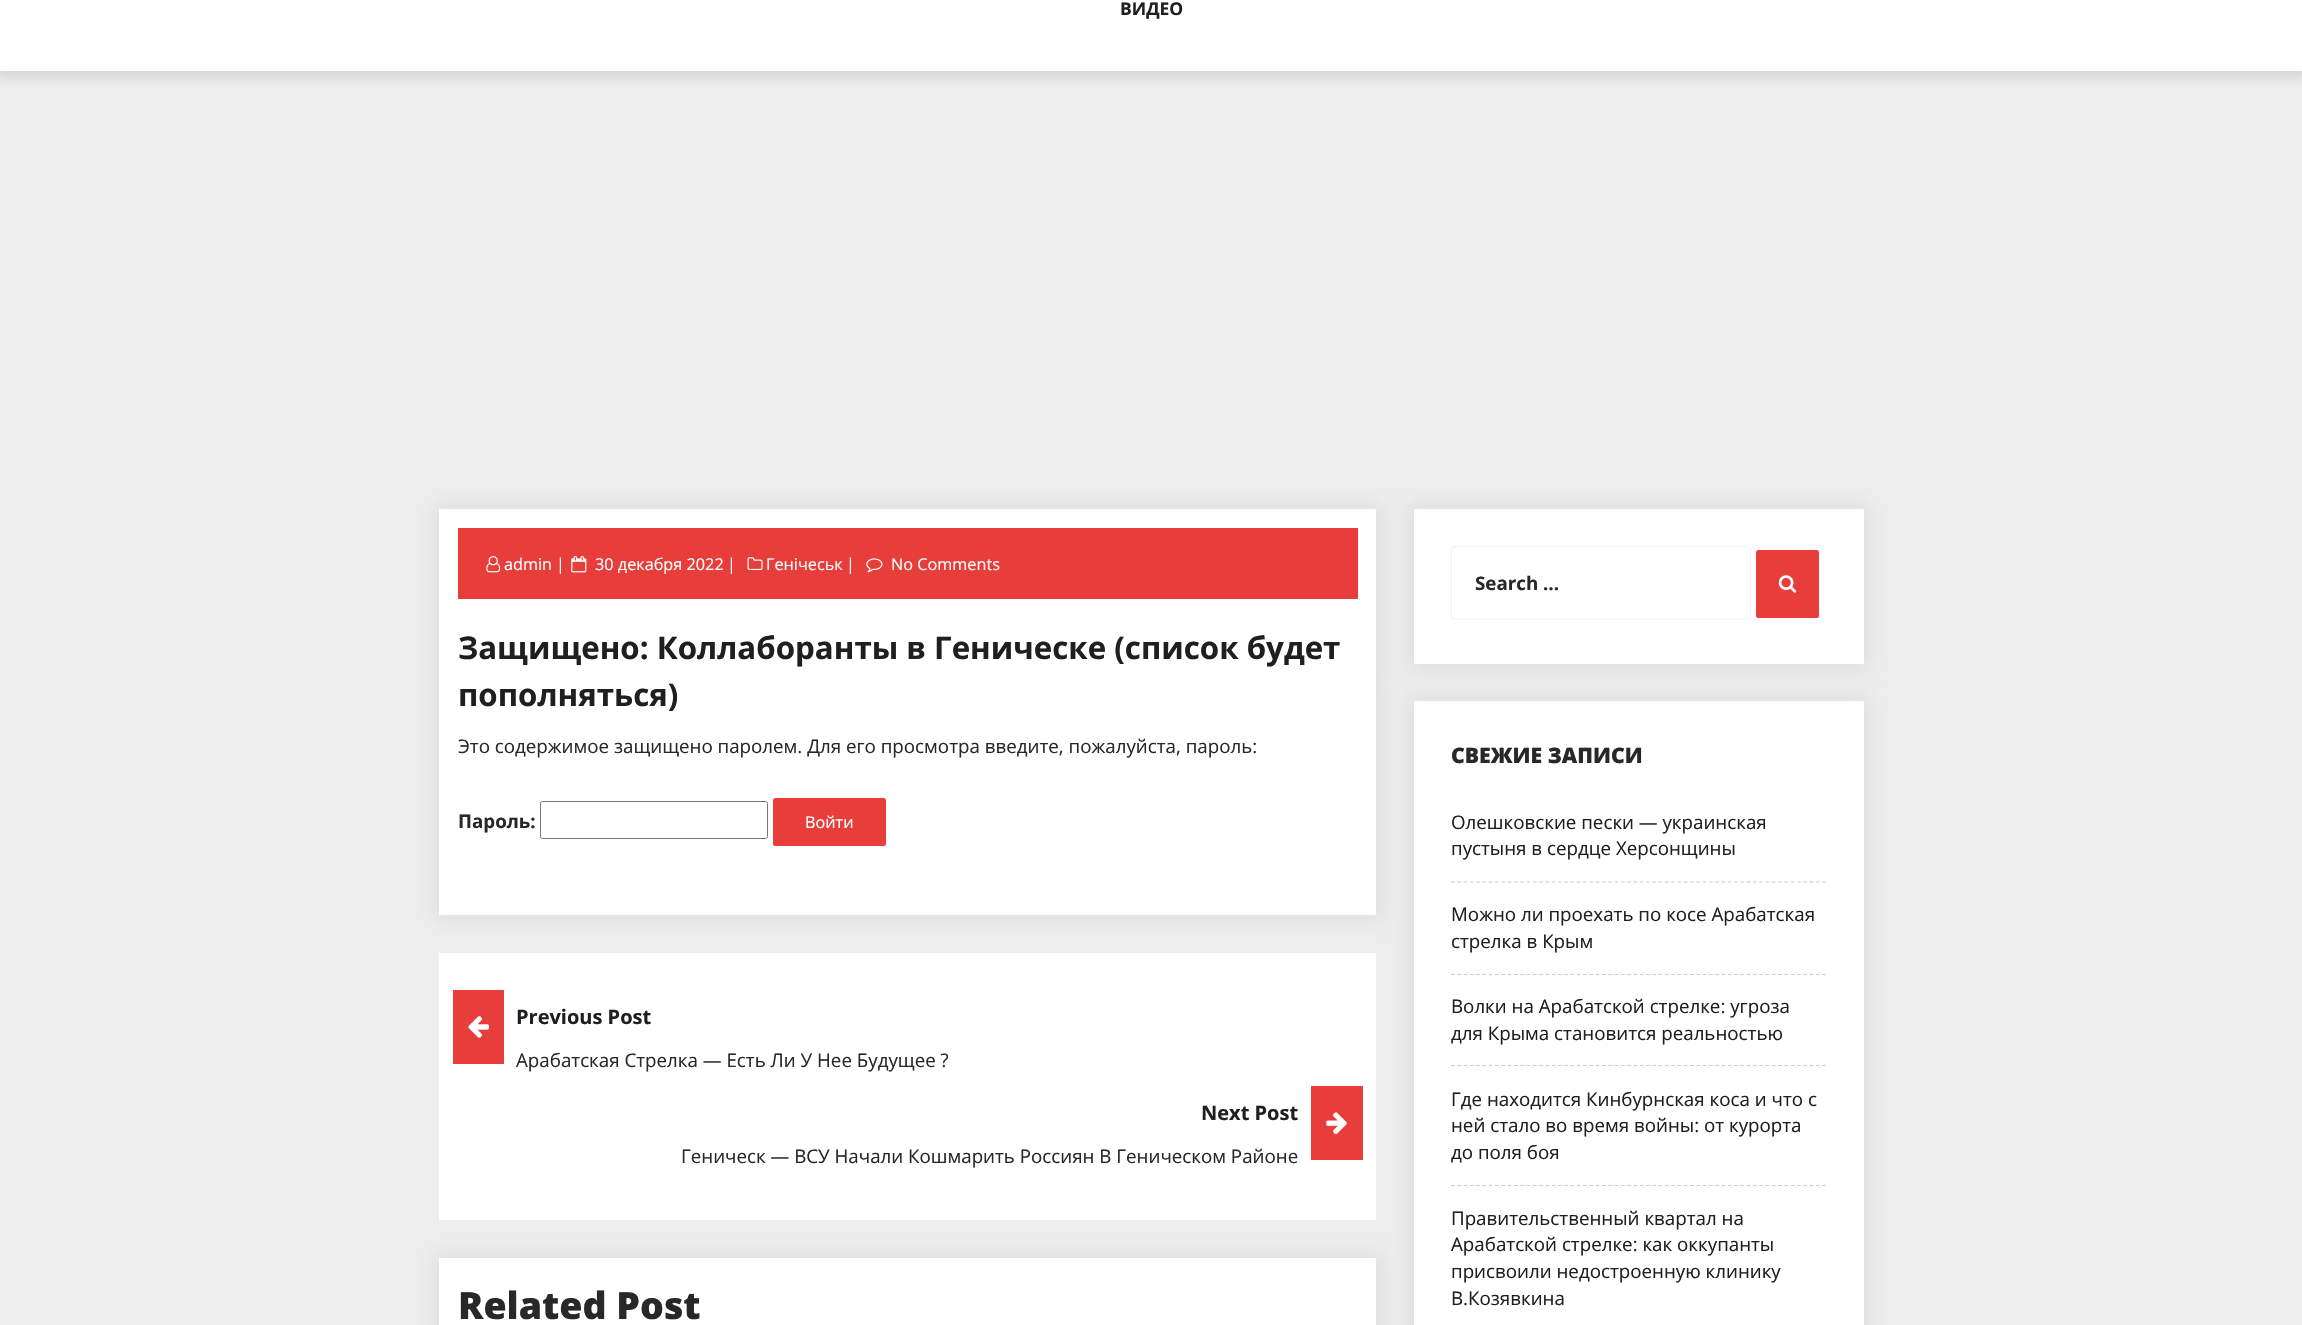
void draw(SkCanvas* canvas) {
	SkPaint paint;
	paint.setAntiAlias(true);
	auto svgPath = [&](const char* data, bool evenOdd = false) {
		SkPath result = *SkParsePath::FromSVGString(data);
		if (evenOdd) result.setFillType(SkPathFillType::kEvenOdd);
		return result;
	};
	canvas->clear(0xffeeeeee);
	paint.setColor(0x1a000000);
	paint.setMaskFilter(SkMaskFilter::MakeBlur(kNormal_SkBlurStyle, 6));
	canvas->drawRect(SkRect::MakeXYWH(-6, -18, 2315, 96), paint);
	paint.setMaskFilter(nullptr);
	paint.setColor(0xffffffff);
	canvas->drawRect(SkRect::MakeXYWH(0, 0, 2302, 71), paint);
	SkFont f1(fontMgr->matchFamilyStyle("Open Sans", SkFontStyle::Bold()), 17.5);
	f1.setSubpixel(true);
	paint.setColor(0xff1f1f1f);
	canvas->drawString("ВИДЕО", 1120, 15, f1, paint);
	paint.setColor(0x14000000);
	paint.setMaskFilter(SkMaskFilter::MakeBlur(kNormal_SkBlurStyle, 10));
	canvas->drawRect(SkRect::MakeXYWH(435, 505, 945, 414), paint);
	paint.setMaskFilter(nullptr);
	paint.setColor(0xffffffff);
	canvas->drawRect(SkRect::MakeXYWH(439, 509, 937, 406), paint);
	paint.setColor(0xffe73e3b);
	canvas->drawRect(SkRect::MakeXYWH(458, 528, 900, 71), paint);
	canvas->drawImageRect(SkImages::DeferredFromEncodedData(SkData::MakeFromFileName("img1.png")), SkRect::MakeXYWH(486, 556, 15, 17), SkSamplingOptions());
	SkFont f2(fontMgr->matchFamilyStyle("Open Sans", SkFontStyle::Normal()), 16.25);
	f2.setSubpixel(true);
	paint.setColor(0xffffffff);
	canvas->drawString("admin", 504, 570, f2, paint);
	canvas->drawString("|", 556, 570, f2, paint);
	canvas->drawImageRect(SkImages::DeferredFromEncodedData(SkData::MakeFromFileName("img2.png")), SkRect::MakeXYWH(571, 556, 16, 17), SkSamplingOptions());
	canvas->drawString("30 декабря 2022", 595, 570, f2, paint);
	canvas->drawString("|", 727, 570, f2, paint);
	canvas->drawImageRect(SkImages::DeferredFromEncodedData(SkData::MakeFromFileName("img3.png")), SkRect::MakeXYWH(747, 557, 16, 13), SkSamplingOptions());
	canvas->drawString("Генічеськ", 766, 570, f2, paint);
	canvas->drawString("|", 846, 570, f2, paint);
	canvas->drawImageRect(SkImages::DeferredFromEncodedData(SkData::MakeFromFileName("img4.png")), SkRect::MakeXYWH(866, 558, 17, 15), SkSamplingOptions());
	canvas->drawString("No Comments", 891, 570, f2, paint);
	SkFont f3(fontMgr->matchFamilyStyle("Open Sans", SkFontStyle::Bold()), 31.25);
	f3.setSubpixel(true);
	paint.setColor(0xff1f1f1f);
	canvas->drawString("Защищено: Коллаборанты в Геническе (список будет", 458, 659, f3, paint);
	canvas->drawString("пополняться)", 458, 706, f3, paint);
	SkFont f4(fontMgr->matchFamilyStyle("Open Sans", SkFontStyle::Normal()), 18.75);
	f4.setSubpixel(true);
	paint.setColor(0xff282828);
	canvas->drawString("Это содержимое защищено паролем. Для его просмотра введите, пожалуйста, пароль:", 458, 753, f4, paint);
	SkFont f5(fontMgr->matchFamilyStyle("Open Sans", SkFontStyle::Bold()), 18.75);
	f5.setSubpixel(true);
	canvas->drawString("Пароль:", 458, 828, f5, paint);
	paint.setStroke(true);
	paint.setStrokeWidth(1);
	paint.setColor(0xff767676);
	canvas->drawRoundRect(SkRect::MakeXYWH(540.5, 801.5, 227, 37), 2, 2, paint);
	paint.setStroke(false);
	paint.setColor(0xffe73e3b);
	canvas->drawRoundRect(SkRect::MakeXYWH(773, 798, 113, 48), 2.5, 2.5, paint);
	paint.setColor(0xffffffff);
	canvas->drawString("Войти", 805, 828, f2, paint);
	canvas->drawRect(SkRect::MakeXYWH(439, 953, 937, 267), paint);
	paint.setColor(0xffe73e3b);
	canvas->drawRect(SkRect::MakeXYWH(453, 990, 51, 74), paint);
	canvas->drawImageRect(SkImages::DeferredFromEncodedData(SkData::MakeFromFileName("img5.png")), SkRect::MakeXYWH(468, 1016, 21, 22), SkSamplingOptions());
	SkFont f6(fontMgr->matchFamilyStyle("Open Sans", SkFontStyle::Bold()), 20);
	f6.setSubpixel(true);
	paint.setColor(0xff1f1f1f);
	canvas->drawString("Previous Post", 516, 1024, f6, paint);
	paint.setColor(0xff282828);
	canvas->drawString("Арабатская Стрелка — Есть Ли У Нее Будущее ?", 516, 1067, f4, paint);
	paint.setColor(0xff1f1f1f);
	canvas->drawString("Next Post", 1201, 1120, f6, paint);
	paint.setColor(0xff282828);
	canvas->drawString("Геническ — ВСУ Начали Кошмарить Россиян В Геническом Районе", 681, 1163, f4, paint);
	paint.setColor(0xffe73e3b);
	canvas->drawRect(SkRect::MakeXYWH(1311, 1086, 52, 74), paint);
	canvas->drawImageRect(SkImages::DeferredFromEncodedData(SkData::MakeFromFileName("img6.png")), SkRect::MakeXYWH(1326, 1112, 21, 23), SkSamplingOptions());
	paint.setColor(0x14000000);
	paint.setMaskFilter(SkMaskFilter::MakeBlur(kNormal_SkBlurStyle, 10));
	canvas->drawRect(SkRect::MakeXYWH(435, 1254, 945, 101), paint);
	paint.setMaskFilter(nullptr);
	paint.setColor(0xffffffff);
	canvas->drawRect(SkRect::MakeXYWH(439, 1258, 937, 67), paint);
	SkFont f7(fontMgr->matchFamilyStyle("Open Sans", SkFontStyle(800, SkFontStyle::kNormal_Width, SkFontStyle::kUpright_Slant)), 37.5);
	f7.setSubpixel(true);
	paint.setColor(0xff282828);
	canvas->drawString("Related Post", 458, 1319, f7, paint);
	paint.setColor(0x14000000);
	paint.setMaskFilter(SkMaskFilter::MakeBlur(kNormal_SkBlurStyle, 10));
	canvas->drawRect(SkRect::MakeXYWH(1410, 505, 458, 163), paint);
	paint.setMaskFilter(nullptr);
	paint.setColor(0xffffffff);
	canvas->drawRect(SkRect::MakeXYWH(1414, 509, 450, 155), paint);
	paint.setStroke(true);
	paint.setColor(0xfff2f2f2);
	canvas->drawRoundRect(SkRect::MakeXYWH(1451.5, 546.5, 299, 73), 3.5, 3.5, paint);
	paint.setStroke(false);
	paint.setColor(0xff282828);
	canvas->drawString("Search …", 1475, 590, f5, paint);
	paint.setColor(0xffe73e3b);
	canvas->drawRoundRect(SkRect::MakeXYWH(1756, 550, 63, 68), 2.5, 2.5, paint);
	canvas->drawImageRect(SkImages::DeferredFromEncodedData(SkData::MakeFromFileName("img7.png")), SkRect::MakeXYWH(1778, 575, 19, 18), SkSamplingOptions());
	paint.setColor(0x14000000);
	paint.setMaskFilter(SkMaskFilter::MakeBlur(kNormal_SkBlurStyle, 10));
	canvas->drawRect(SkRect::MakeXYWH(1410, 698, 458, 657), paint);
	paint.setMaskFilter(nullptr);
	paint.setColor(0xffffffff);
	canvas->drawRect(SkRect::MakeXYWH(1414, 701, 450, 624), paint);
	SkFont f8(fontMgr->matchFamilyStyle("Open Sans", SkFontStyle(800, SkFontStyle::kNormal_Width, SkFontStyle::kUpright_Slant)), 21.25);
	f8.setSubpixel(true);
	paint.setColor(0xff282828);
	canvas->drawString("СВЕЖИЕ ЗАПИСИ", 1451, 763, f8, paint);
	paint.setStroke(true);
	paint.setStrokeWidth(1.2);
	paint.setColor(0xffcccccc);
	paint.setPathEffect(SkDashPathEffect::Make({{3.75f, 2.54f}}, 0));
	canvas->drawPath(svgPath("M1451 882H1826"), paint);
	paint.setPathEffect(nullptr);
	paint.setStroke(false);
	paint.setColor(0xff1f1f1f);
	canvas->drawString("Олешковские пески — украинская", 1451, 829, f4, paint);
	canvas->drawString("пустыня в сердце Херсонщины", 1451, 855, f4, paint);
	paint.setStroke(true);
	paint.setColor(0xffcccccc);
	paint.setPathEffect(SkDashPathEffect::Make({{3.75f, 2.54f}}, 0));
	canvas->drawPath(svgPath("M1451 974.5H1826"), paint);
	paint.setPathEffect(nullptr);
	paint.setStroke(false);
	paint.setColor(0xff1f1f1f);
	canvas->drawString("Можно ли проехать по косе Арабатская", 1451, 921, f4, paint);
	canvas->drawString("стрелка в Крым", 1451, 948, f4, paint);
	paint.setStroke(true);
	paint.setColor(0xffcccccc);
	paint.setPathEffect(SkDashPathEffect::Make({{3.75f, 2.54f}}, 0));
	canvas->drawPath(svgPath("M1451 1065.5H1826"), paint);
	paint.setPathEffect(nullptr);
	paint.setStroke(false);
	paint.setColor(0xff1f1f1f);
	canvas->drawString("Волки на Арабатской стрелке: угроза", 1451, 1013, f4, paint);
	canvas->drawString("для Крыма становится реальностью", 1451, 1040, f4, paint);
	paint.setStroke(true);
	paint.setColor(0xffcccccc);
	paint.setPathEffect(SkDashPathEffect::Make({{3.75f, 2.54f}}, 0));
	canvas->drawPath(svgPath("M1451 1185.5H1826"), paint);
	paint.setPathEffect(nullptr);
	paint.setStroke(false);
	paint.setColor(0xff1f1f1f);
	canvas->drawString("Где находится Кинбурнская коса и что с", 1451, 1106, f4, paint);
	canvas->drawString("ней стало во время войны: от курорта", 1451, 1132, f4, paint);
	canvas->drawString("до поля боя", 1451, 1159, f4, paint);
	canvas->drawString("Правительственный квартал на", 1451, 1225, f4, paint);
	canvas->drawString("Арабатской стрелке: как оккупанты", 1451, 1251, f4, paint);
	canvas->drawString("присвоили недостроенную клинику", 1451, 1278, f4, paint);
	canvas->drawString("В.Козявкина", 1451, 1305, f4, paint);
}
